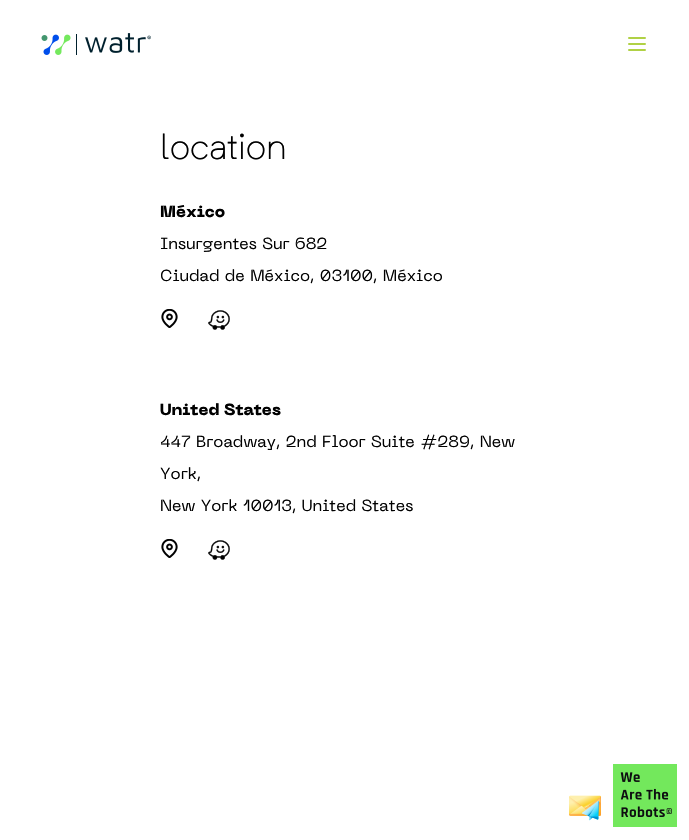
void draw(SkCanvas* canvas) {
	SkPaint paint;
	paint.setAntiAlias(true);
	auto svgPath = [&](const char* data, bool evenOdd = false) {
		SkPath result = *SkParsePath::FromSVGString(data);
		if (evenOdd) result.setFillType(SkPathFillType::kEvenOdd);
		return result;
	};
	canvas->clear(0xffffffff);
	canvas->drawImageRect(SkImages::DeferredFromEncodedData(SkData::MakeFromFileName("img1.png")), SkRect::MakeXYWH(41, 33, 110, 22), SkSamplingOptions());
	paint.setStroke(true);
	paint.setStrokeWidth(2);
	paint.setStrokeCap(SkPaint::kRound_Cap);
	paint.setStrokeJoin(SkPaint::kRound_Join);
	paint.setColor(0xffb0d145);
	canvas->drawPath(svgPath("M629 38H645M629 44H645M629 50H645"), paint);
	SkFont f1(fontMgr->matchFamilyStyle("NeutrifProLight", SkFontStyle(300, SkFontStyle::kNormal_Width, SkFontStyle::kUpright_Slant)), 36);
	f1.setSubpixel(true);
	paint.setStroke(false);
	paint.setColor(0xff000000);
	canvas->drawString("location", 160, 159, f1, paint);
	SkFont f2(fontMgr->matchFamilyStyle("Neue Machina", SkFontStyle(800, SkFontStyle::kNormal_Width, SkFontStyle::kUpright_Slant)), 16);
	f2.setSubpixel(true);
	canvas->drawString("México", 160, 217, f2, paint);
	SkFont f3(fontMgr->matchFamilyStyle("Neue Machina", SkFontStyle::Normal()), 16);
	f3.setSubpixel(true);
	canvas->drawString("Insurgentes Sur 682", 160, 249, f3, paint);
	canvas->drawString("Ciudad de México, 03100, México", 160, 281, f3, paint);
	canvas->drawImageRect(SkImages::DeferredFromEncodedData(SkData::MakeFromFileName("img2.png")), SkRect::MakeXYWH(161, 309, 17, 19), SkSamplingOptions());
	canvas->drawImageRect(SkImages::DeferredFromEncodedData(SkData::MakeFromFileName("img3.png")), SkRect::MakeXYWH(208, 310, 22, 20), SkSamplingOptions());
	canvas->drawString("United States", 160, 415, f2, paint);
	canvas->drawString("447 Broadway, 2nd Floor Suite #289, New", 160, 447, f3, paint);
	canvas->drawString("York,", 160, 479, f3, paint);
	canvas->drawString("New York 10013, United States", 160, 511, f3, paint);
	canvas->drawImageRect(SkImages::DeferredFromEncodedData(SkData::MakeFromFileName("img2.png")), SkRect::MakeXYWH(161, 539, 17, 19), SkSamplingOptions());
	canvas->drawImageRect(SkImages::DeferredFromEncodedData(SkData::MakeFromFileName("img3.png")), SkRect::MakeXYWH(208, 540, 22, 20), SkSamplingOptions());
	canvas->drawImageRect(SkImages::DeferredFromEncodedData(SkData::MakeFromFileName("img4.png")), SkRect::MakeXYWH(569, 795, 32, 26), SkSamplingOptions());
	canvas->drawImageRect(SkImages::DeferredFromEncodedData(SkData::MakeFromFileName("img5.png")), SkRect::MakeXYWH(613, 764, 64, 63), SkSamplingOptions());
}
